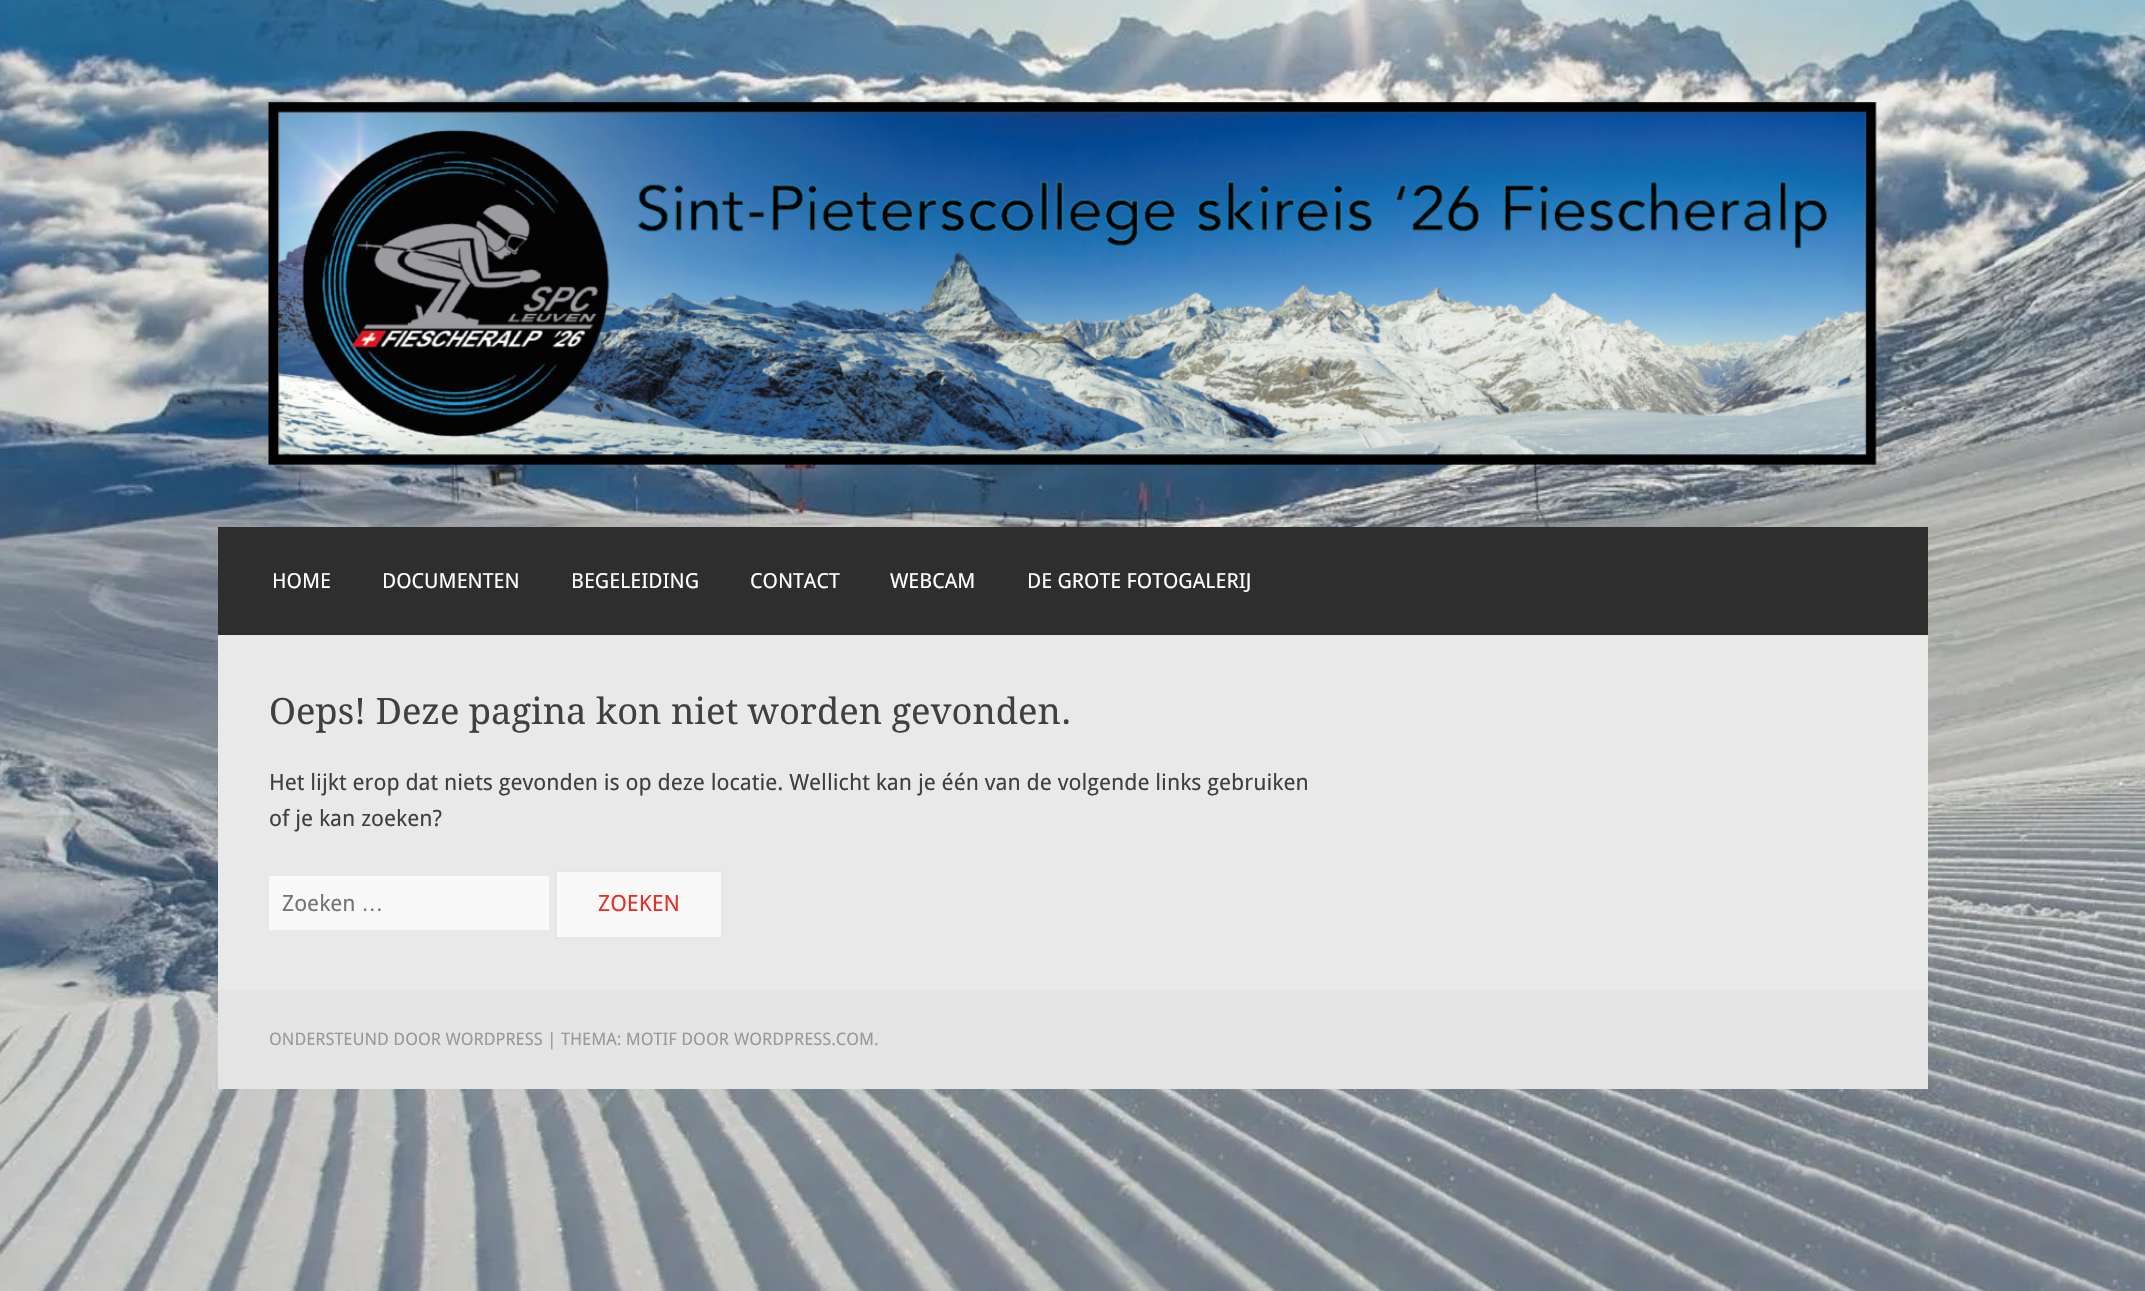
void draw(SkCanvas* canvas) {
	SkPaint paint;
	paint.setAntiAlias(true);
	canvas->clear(0xffffffff);
	canvas->drawImageRect(SkImages::DeferredFromEncodedData(SkData::MakeFromFileName("img1.png")), SkRect::MakeXYWH(0, 0, 2145, 1291), SkSamplingOptions());
	canvas->drawImageRect(SkImages::DeferredFromEncodedData(SkData::MakeFromFileName("img2.png")), SkRect::MakeXYWH(268, 102, 1609, 363), SkSamplingOptions());
	paint.setColor(0xff2e2e2e);
	canvas->drawRect(SkRect::MakeXYWH(218, 527, 1710, 108), paint);
	SkFont f1(fontMgr->matchFamilyStyle("Droid Sans", SkFontStyle::Normal()), 20.75);
	f1.setSubpixel(true);
	paint.setColor(0xffffffff);
	canvas->drawString("HOME", 272, 588, f1, paint);
	canvas->drawString("DOCUMENTEN", 382, 588, f1, paint);
	canvas->drawString("BEGELEIDING", 571, 588, f1, paint);
	canvas->drawString("CONTACT", 750, 588, f1, paint);
	canvas->drawString("WEBCAM", 890, 588, f1, paint);
	canvas->drawString("DE GROTE FOTOGALERIJ", 1027, 588, f1, paint);
	paint.setColor(0xffe9e9e9);
	canvas->drawRect(SkRect::MakeXYWH(218, 635, 1710, 355), paint);
	SkFont f2(fontMgr->matchFamilyStyle("Droid Serif", SkFontStyle::Normal()), 36.3);
	f2.setSubpixel(true);
	paint.setColor(0xff404040);
	canvas->drawString("Oeps! Deze pagina kon niet worden gevonden.", 269, 724, f2, paint);
	SkFont f3(fontMgr->matchFamilyStyle("Droid Sans", SkFontStyle::Normal()), 22.5);
	f3.setSubpixel(true);
	canvas->drawString("Het lijkt erop dat niets gevonden is op deze locatie. Wellicht kan je één van de volgende links gebruiken", 269, 790, f3, paint);
	canvas->drawString("of je kan zoeken?", 269, 826, f3, paint);
	paint.setColor(0xfff9f9f9);
	canvas->drawRect(SkRect::MakeXYWH(269, 876, 280, 54), paint);
	paint.setColor(0xff757575);
	canvas->drawString("Zoeken", 282, 911, f3, paint);
	SkFont f4(fontMgr->matchFamilyStyle("Liberation Sans", SkFontStyle::Normal()), 22.5);
	f4.setSubpixel(true);
	canvas->drawString("…", 361, 911, f4, paint);
	paint.setColor(0xfff9f9f9);
	canvas->drawRect(SkRect::MakeXYWH(556, 871, 166, 67), paint);
	paint.setStroke(true);
	paint.setStrokeWidth(2);
	paint.setColor(0xffe6e6e6);
	canvas->drawRect(SkRect::MakeXYWH(556, 871, 166, 67), paint);
	paint.setStroke(false);
	paint.setColor(0xffea2e25);
	canvas->drawString("ZOEKEN", 598, 911, f3, paint);
	paint.setColor(0xffe4e4e4);
	canvas->drawRect(SkRect::MakeXYWH(218, 990, 1710, 99), paint);
	SkFont f5(fontMgr->matchFamilyStyle("Droid Sans", SkFontStyle::Normal()), 17.25);
	f5.setSubpixel(true);
	paint.setColor(0xff999999);
	canvas->drawString("ONDERSTEUND DOOR WORDPRESS", 269, 1045, f5, paint);
	canvas->drawString("| THEMA: MOTIF DOOR", 547, 1045, f5, paint);
	canvas->drawString("WORDPRESS.COM.", 734, 1045, f5, paint);
}
